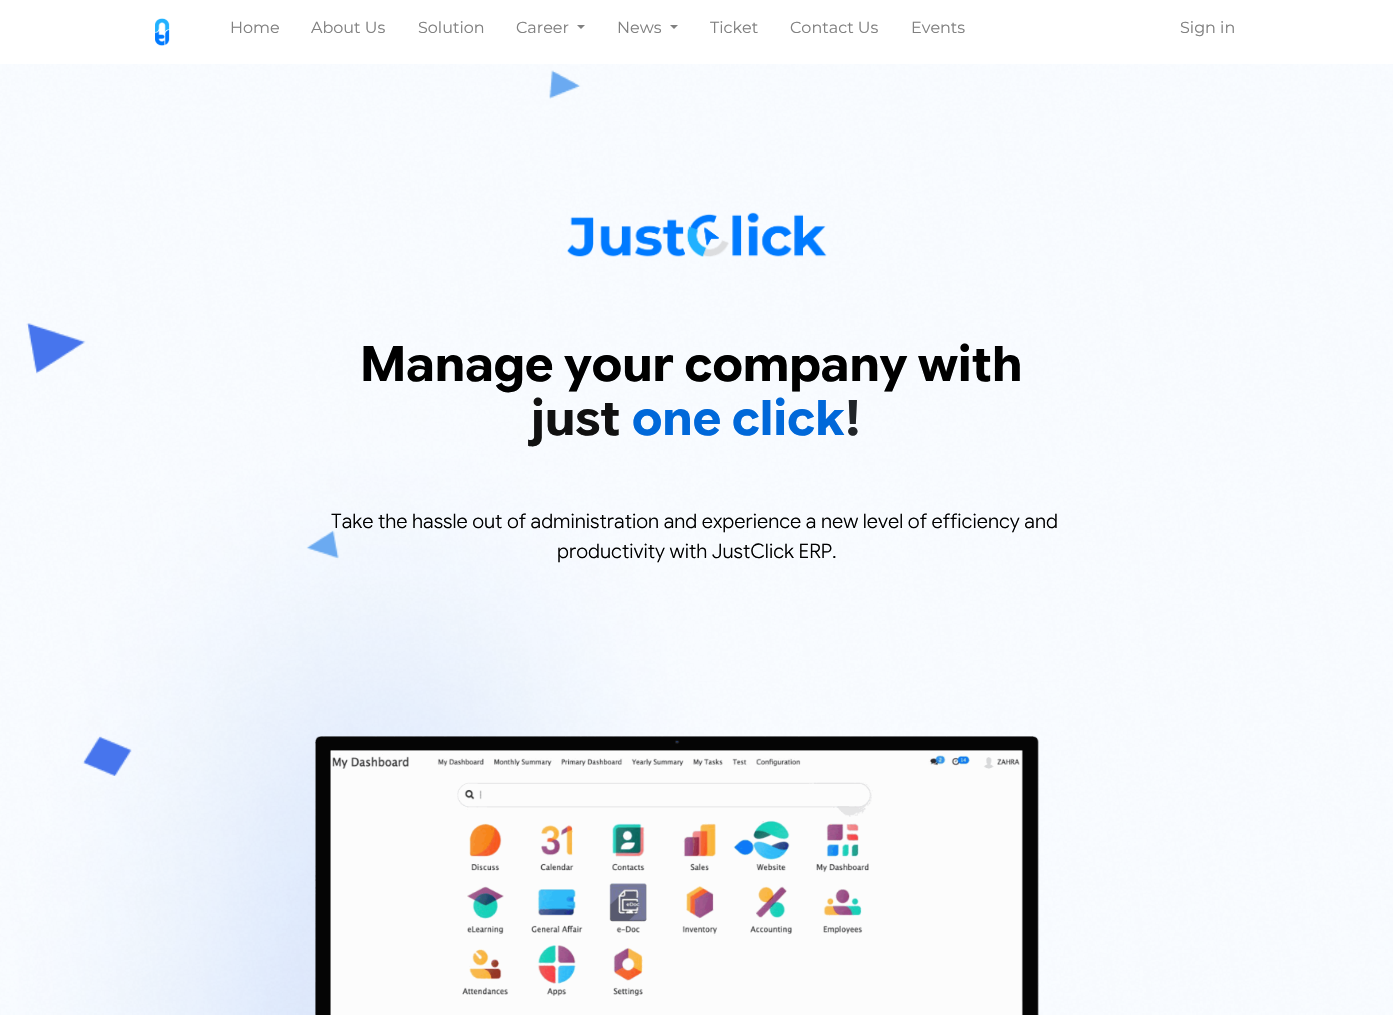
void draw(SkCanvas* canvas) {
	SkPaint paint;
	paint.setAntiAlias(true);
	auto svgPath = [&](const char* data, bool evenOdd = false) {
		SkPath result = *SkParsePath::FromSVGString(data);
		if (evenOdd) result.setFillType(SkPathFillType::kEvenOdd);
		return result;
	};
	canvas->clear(0xffffffff);
	canvas->drawImageRect(SkImages::DeferredFromEncodedData(SkData::MakeFromFileName("img1.png")), SkRect::MakeXYWH(155, 18, 15, 28), SkSamplingOptions());
	SkFont f1(fontMgr->matchFamilyStyle("Montserrat", SkFontStyle::Normal()), 16);
	f1.setSubpixel(true);
	paint.setColor(0xff808080);
	canvas->drawString("Home", 230, 33, f1, paint);
	canvas->drawString("About Us", 311, 33, f1, paint);
	canvas->drawString("Solution", 418, 33, f1, paint);
	canvas->drawString("Career", 516, 33, f1, paint);
	canvas->drawPath(svgPath("M577 25H585L581 29Z"), paint);
	canvas->drawString("News", 617, 33, f1, paint);
	canvas->drawPath(svgPath("M670 25H678L674 29Z"), paint);
	canvas->drawString("Ticket", 710, 33, f1, paint);
	canvas->drawString("Contact Us", 790, 33, f1, paint);
	canvas->drawString("Events", 911, 33, f1, paint);
	canvas->drawString("Sign in", 1180, 33, f1, paint);
	canvas->drawImageRect(SkImages::DeferredFromEncodedData(SkData::MakeFromFileName("img2.png")), SkRect::MakeXYWH(0, 64, 1393, 951), SkSamplingOptions());
	canvas->drawImageRect(SkImages::DeferredFromEncodedData(SkData::MakeFromFileName("img3.png")), SkRect::MakeXYWH(567, 212, 260, 45), SkSamplingOptions());
	SkFont f2(fontMgr->matchFamilyStyle("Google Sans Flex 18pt", SkFontStyle::Bold()), 48.8);
	f2.setSubpixel(true);
	paint.setColor(0xff000000);
	canvas->drawString("Manage your company with", 360, 381, f2, paint);
	paint.setColor(0xff111111);
	canvas->drawString("just", 531, 435, f2, paint);
	paint.setColor(0xff0068d9);
	canvas->drawString("one click", 632, 435, f2, paint);
	paint.setColor(0xff212529);
	canvas->drawString("!", 844, 435, f2, paint);
	SkFont f3(fontMgr->matchFamilyStyle("Google Sans Flex 18pt", SkFontStyle(300, SkFontStyle::kNormal_Width, SkFontStyle::kUpright_Slant)), 20);
	f3.setSubpixel(true);
	paint.setColor(0xff000000);
	canvas->drawString("Take the hassle out of administration and experience a new level of efficiency and", 331, 528, f3, paint);
	canvas->drawString("productivity with JustClick ERP.", 557, 558, f3, paint);
	canvas->drawImageRect(SkImages::DeferredFromEncodedData(SkData::MakeFromFileName("img4.png")), SkRect::MakeXYWH(315, 736, 724, 279), SkSamplingOptions());
}
